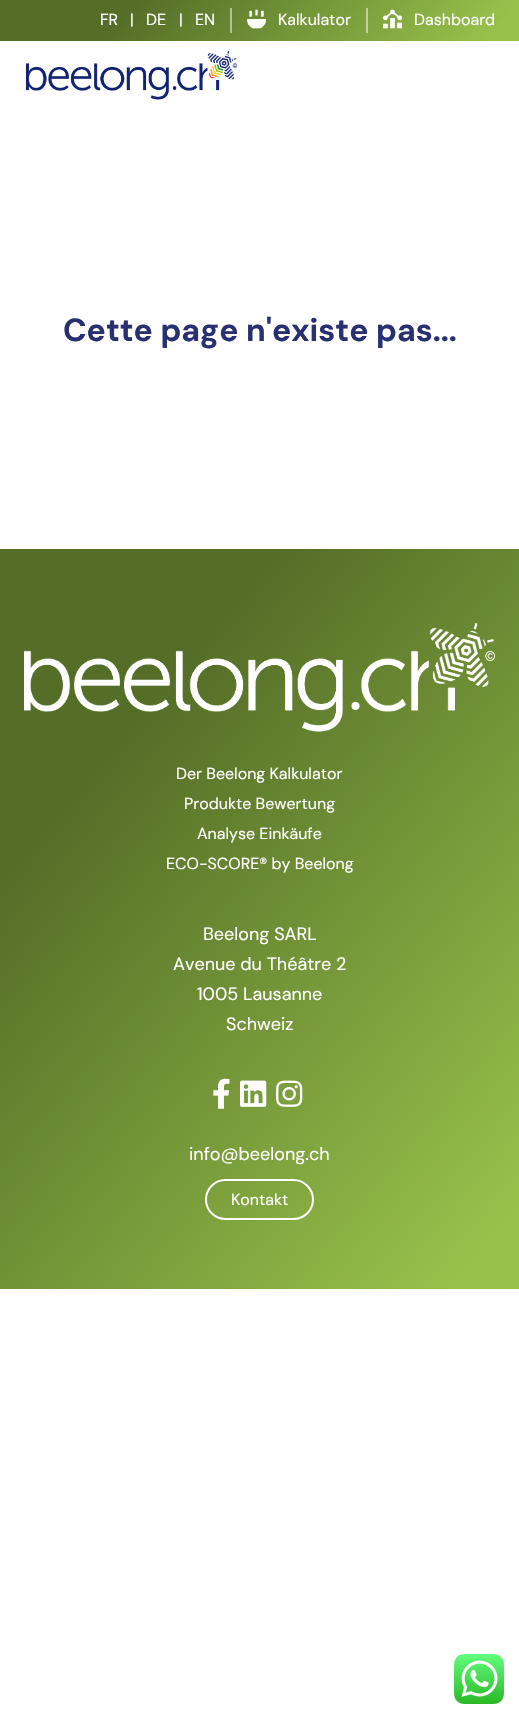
void draw(SkCanvas* canvas) {
	SkPaint paint;
	paint.setAntiAlias(true);
	canvas->clear(0xffffffff);
	{
		const SkColor colors[] = {0xff546d27, 0xff97c14b};
		const float stops[] = {0.24, 0.94};
		const SkPoint ends[] = {{98, -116}, {421, 157}};
		paint.setShader(SkGradientShader::MakeLinear(ends, colors, stops, 2, SkTileMode::kClamp));
		paint.setAlpha(255);
	}
	canvas->drawRect(SkRect::MakeXYWH(0, 0, 519, 41), paint);
	{
		const SkColor colors[] = {0xffaab693, 0xffcbe0a5};
		const float stops[] = {0.24, 0.94};
		const SkPoint ends[] = {{98, -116}, {421, 157}};
		paint.setShader(SkGradientShader::MakeLinear(ends, colors, stops, 2, SkTileMode::kClamp));
		paint.setAlpha(255);
	}
	canvas->drawRect(SkRect::MakeXYWH(366, 8, 2, 25), paint);
	canvas->drawRect(SkRect::MakeXYWH(230, 8, 2, 25), paint);
	SkFont f1(fontMgr->matchFamilyStyle("DM Sans", SkFontStyle::Normal()), 16);
	f1.setSubpixel(true);
	paint.setShader(nullptr);
	paint.setColor(0xffffffff);
	canvas->drawString("FR", 100, 25, f1, paint);
	canvas->drawString("|", 130, 25, f1, paint);
	canvas->drawString("DE", 146, 25, f1, paint);
	canvas->drawString("|", 179, 25, f1, paint);
	canvas->drawString("EN", 195, 25, f1, paint);
	canvas->drawImageRect(SkImages::DeferredFromEncodedData(SkData::MakeFromFileName("img1.png")), SkRect::MakeXYWH(247, 9, 19, 20), SkSamplingOptions());
	canvas->drawString("Kalkulator", 278, 25, f1, paint);
	canvas->drawImageRect(SkImages::DeferredFromEncodedData(SkData::MakeFromFileName("img2.png")), SkRect::MakeXYWH(383, 9, 19, 20), SkSamplingOptions());
	canvas->drawString("Dashboard", 414, 25, f1, paint);
	canvas->drawImageRect(SkImages::DeferredFromEncodedData(SkData::MakeFromFileName("img3.png")), SkRect::MakeXYWH(26, 51, 211, 49), SkSamplingOptions());
	SkFont f2(fontMgr->matchFamilyStyle("DM Sans", SkFontStyle::Bold()), 32);
	f2.setSubpixel(true);
	paint.setColor(0xff283071);
	canvas->drawString("Cette page n'existe pas...", 63, 341, f2, paint);
	{
		const SkColor colors[] = {0xff546d27, 0xff97c14b};
		const float stops[] = {0.24, 0.94};
		const SkPoint ends[] = {{-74, 637}, {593, 1201}};
		paint.setShader(SkGradientShader::MakeLinear(ends, colors, stops, 2, SkTileMode::kClamp));
		paint.setAlpha(255);
	}
	canvas->drawRect(SkRect::MakeXYWH(0, 549, 519, 740), paint);
	canvas->drawImageRect(SkImages::DeferredFromEncodedData(SkData::MakeFromFileName("img4.png")), SkRect::MakeXYWH(24, 623, 471, 109), SkSamplingOptions());
	paint.setShader(nullptr);
	paint.setColor(0xffffffff);
	canvas->drawString("Der Beelong Kalkulator", 176, 779, f1, paint);
	canvas->drawString("Produkte Bewertung", 184, 809, f1, paint);
	canvas->drawString("Analyse Einkäufe", 197, 839, f1, paint);
	canvas->drawString("ECO-SCORE® by Beelong", 166, 869, f1, paint);
	SkFont f3(fontMgr->matchFamilyStyle("DM Sans", SkFontStyle::Normal()), 18);
	f3.setSubpixel(true);
	canvas->drawString("Beelong SARL", 203, 940, f3, paint);
	canvas->drawString("Avenue du Théâtre 2", 173, 970, f3, paint);
	canvas->drawString("1005 Lausanne", 197, 1000, f3, paint);
	canvas->drawString("Schweiz", 226, 1030, f3, paint);
	canvas->drawImageRect(SkImages::DeferredFromEncodedData(SkData::MakeFromFileName("img5.png")), SkRect::MakeXYWH(213, 1078, 17, 31), SkSamplingOptions());
	canvas->drawImageRect(SkImages::DeferredFromEncodedData(SkData::MakeFromFileName("img6.png")), SkRect::MakeXYWH(240, 1080, 27, 27), SkSamplingOptions());
	canvas->drawImageRect(SkImages::DeferredFromEncodedData(SkData::MakeFromFileName("img7.png")), SkRect::MakeXYWH(276, 1080, 27, 27), SkSamplingOptions());
	canvas->drawString("info@beelong.ch", 189, 1160, f3, paint);
	paint.setStroke(true);
	paint.setStrokeWidth(2);
	canvas->drawRoundRect(SkRect::MakeXYWH(206, 1180, 107, 39), 19.5, 19.5, paint);
	paint.setStroke(false);
	canvas->drawString("Kontakt", 231, 1205, f1, paint);
	canvas->drawImageRect(SkImages::DeferredFromEncodedData(SkData::MakeFromFileName("img8.png")), SkRect::MakeXYWH(454, 1654, 50, 50), SkSamplingOptions());
}
